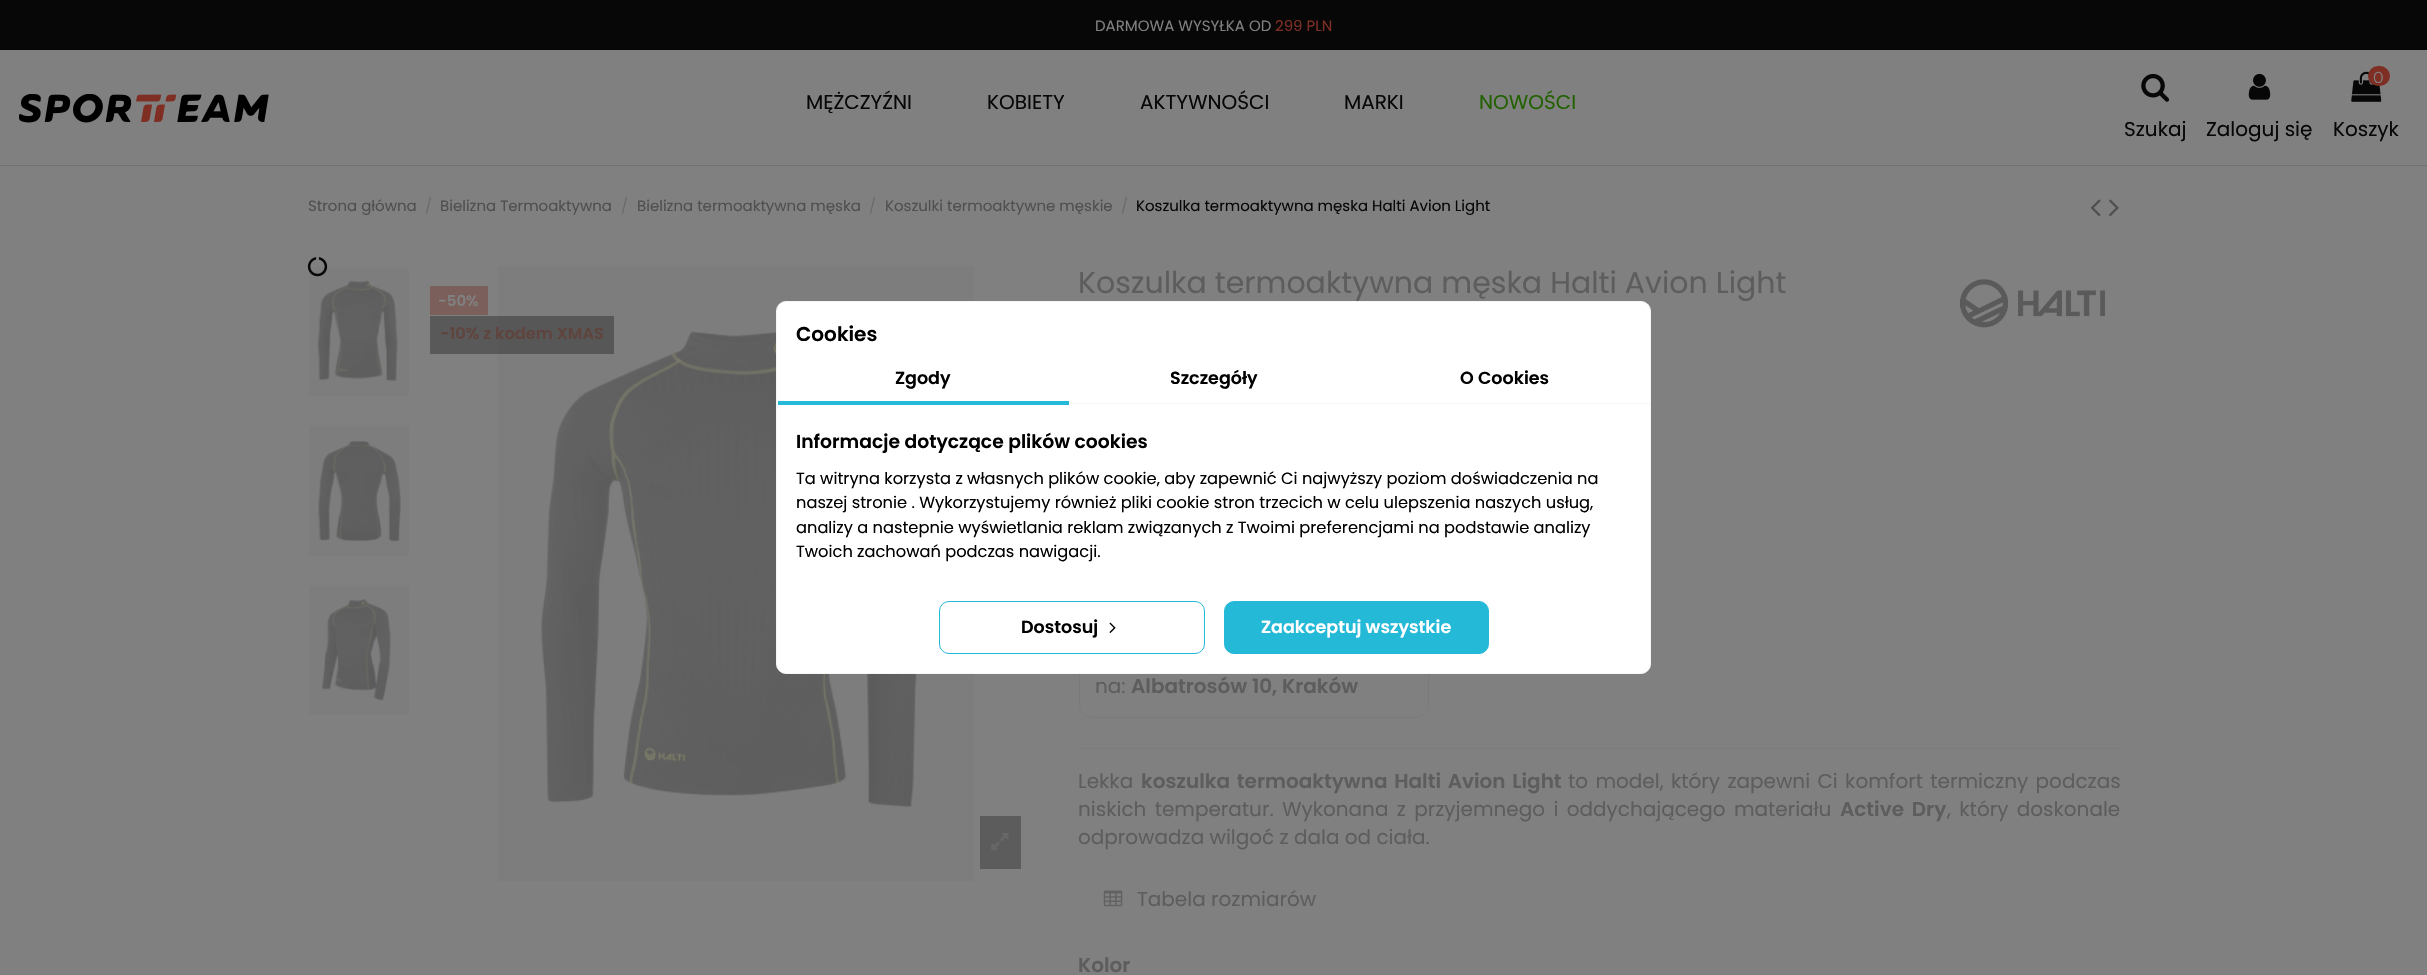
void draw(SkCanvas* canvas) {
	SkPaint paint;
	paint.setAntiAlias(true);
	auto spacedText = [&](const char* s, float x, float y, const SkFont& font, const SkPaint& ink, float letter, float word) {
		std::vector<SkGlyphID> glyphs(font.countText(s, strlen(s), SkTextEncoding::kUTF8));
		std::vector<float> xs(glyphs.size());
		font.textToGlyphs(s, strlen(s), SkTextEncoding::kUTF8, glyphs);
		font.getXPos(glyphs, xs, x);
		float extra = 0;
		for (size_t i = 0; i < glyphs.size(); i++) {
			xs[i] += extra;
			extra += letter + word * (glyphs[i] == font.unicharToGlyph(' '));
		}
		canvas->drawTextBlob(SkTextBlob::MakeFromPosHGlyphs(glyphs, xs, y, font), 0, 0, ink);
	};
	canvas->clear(0xff808080);
	paint.setColor(0xff727272);
	canvas->drawRect(SkRect::MakeXYWH(0, 165, 2427, 1), paint);
	paint.setColor(0xff070707);
	canvas->drawRect(SkRect::MakeXYWH(0, 0, 2427, 50), paint);
	SkFont f1(fontMgr->matchFamilyStyle("Poppins", SkFontStyle::Normal()), 15);
	f1.setSubpixel(true);
	paint.setColor(0xff808080);
	canvas->drawString("DARMOWA WYSYŁKA OD", 1095, 31, f1, paint);
	paint.setColor(0xff7e2e23);
	canvas->drawString("299 PLN", 1275, 31, f1, paint);
	canvas->drawImageRect(SkImages::DeferredFromEncodedData(SkData::MakeFromFileName("img1.png")), SkRect::MakeXYWH(19, 94, 250, 29), SkSamplingOptions());
	SkFont f2(fontMgr->matchFamilyStyle("Poppins", SkFontStyle::Normal()), 20);
	f2.setSubpixel(true);
	paint.setColor(0xff070707);
	canvas->drawString("MĘŻCZYŹNI", 806, 109, f2, paint);
	canvas->drawString("KOBIETY", 987, 109, f2, paint);
	canvas->drawString("AKTYWNOŚCI", 1140, 109, f2, paint);
	canvas->drawString("MARKI", 1344, 109, f2, paint);
	paint.setColor(0xff226100);
	canvas->drawString("NOWOŚCI", 1479, 109, f2, paint);
	canvas->drawImageRect(SkImages::DeferredFromEncodedData(SkData::MakeFromFileName("img2.png")), SkRect::MakeXYWH(2141, 73, 29, 29), SkSamplingOptions());
	paint.setColor(0xff070707);
	canvas->drawString("Szukaj", 2124, 136, f2, paint);
	canvas->drawImageRect(SkImages::DeferredFromEncodedData(SkData::MakeFromFileName("img3.png")), SkRect::MakeXYWH(2248, 73, 23, 27), SkSamplingOptions());
	canvas->drawString("Zaloguj się", 2206, 136, f2, paint);
	canvas->drawImageRect(SkImages::DeferredFromEncodedData(SkData::MakeFromFileName("img4.png")), SkRect::MakeXYWH(2351, 71, 31, 31), SkSamplingOptions());
	paint.setColor(0xff7e2e23);
	canvas->drawRoundRect(SkRect::MakeXYWH(2368, 66, 22, 20), 10, 10, paint);
	SkFont f3(fontMgr->matchFamilyStyle("Montserrat", SkFontStyle::Normal()), 16);
	f3.setSubpixel(true);
	paint.setColor(0xff808080);
	canvas->drawString("0", 2373, 83, f3, paint);
	paint.setColor(0xff070707);
	canvas->drawString("Koszyk", 2333, 136, f2, paint);
	paint.setColor(0xff4f4f4f);
	canvas->drawString("Strona główna", 308, 211, f1, paint);
	paint.setColor(0xff6c6c6c);
	canvas->drawString("/", 425, 211, f1, paint);
	paint.setColor(0xff4f4f4f);
	canvas->drawString("Bielizna Termoaktywna", 440, 211, f1, paint);
	paint.setColor(0xff6c6c6c);
	canvas->drawString("/", 621, 211, f1, paint);
	paint.setColor(0xff4f4f4f);
	canvas->drawString("Bielizna termoaktywna męska", 637, 211, f1, paint);
	paint.setColor(0xff6c6c6c);
	canvas->drawString("/", 869, 211, f1, paint);
	paint.setColor(0xff4f4f4f);
	canvas->drawString("Koszulki termoaktywne męskie", 885, 211, f1, paint);
	paint.setColor(0xff6c6c6c);
	canvas->drawString("/", 1121, 211, f1, paint);
	paint.setColor(0xff070707);
	canvas->drawString("Koszulka termoaktywna męska Halti Avion Light", 1136, 211, f1, paint);
	canvas->drawImageRect(SkImages::DeferredFromEncodedData(SkData::MakeFromFileName("img5.png")), SkRect::MakeXYWH(2090, 199, 11, 18), SkSamplingOptions());
	canvas->drawImageRect(SkImages::DeferredFromEncodedData(SkData::MakeFromFileName("img6.png")), SkRect::MakeXYWH(2109, 199, 10, 18), SkSamplingOptions());
	canvas->drawImageRect(SkImages::DeferredFromEncodedData(SkData::MakeFromFileName("img8.png")), SkRect::MakeXYWH(309, 267, 100, 129), SkSamplingOptions());
	canvas->drawImageRect(SkImages::DeferredFromEncodedData(SkData::MakeFromFileName("img7.png")), SkRect::MakeXYWH(307, 257, 21, 20), SkSamplingOptions());
	canvas->drawImageRect(SkImages::DeferredFromEncodedData(SkData::MakeFromFileName("img9.png")), SkRect::MakeXYWH(309, 426, 100, 130), SkSamplingOptions());
	canvas->drawImageRect(SkImages::DeferredFromEncodedData(SkData::MakeFromFileName("img10.png")), SkRect::MakeXYWH(309, 586, 100, 129), SkSamplingOptions());
	paint.setColor(0xff7b5f5a);
	canvas->drawRect(SkRect::MakeXYWH(430, 286, 58, 29), paint);
	SkFont f4(fontMgr->matchFamilyStyle("Poppins", SkFontStyle(600, SkFontStyle::kNormal_Width, SkFontStyle::kUpright_Slant)), 15);
	f4.setSubpixel(true);
	paint.setColor(0xff808080);
	canvas->drawString("-50%", 438, 306, f4, paint);
	canvas->drawImageRect(SkImages::DeferredFromEncodedData(SkData::MakeFromFileName("img11.png")), SkRect::MakeXYWH(498, 266, 476, 615), SkSamplingOptions());
	paint.setColor(0x4d000000);
	canvas->drawRect(SkRect::MakeXYWH(430, 316, 184, 38), paint);
	SkFont f5(fontMgr->matchFamilyStyle("Poppins", SkFontStyle(600, SkFontStyle::kNormal_Width, SkFontStyle::kUpright_Slant)), 16.25);
	f5.setSubpixel(true);
	paint.setColor(0xff5f443e);
	canvas->drawString("-10% z kodem XMAS", 440, 339, f5, paint);
	paint.setColor(0xff5c5c5c);
	canvas->drawRect(SkRect::MakeXYWH(980, 816, 41, 53), paint);
	canvas->drawImageRect(SkImages::DeferredFromEncodedData(SkData::MakeFromFileName("img12.png")), SkRect::MakeXYWH(991, 833, 18, 18), SkSamplingOptions());
	paint.setColor(0xff7c7c7c);
	canvas->drawRect(SkRect::MakeXYWH(1079, 748, 1041, 1), paint);
	SkFont f6(fontMgr->matchFamilyStyle("Poppins", SkFontStyle::Normal()), 30);
	f6.setSubpixel(true);
	paint.setColor(0xff5d5d5d);
	canvas->drawString("Koszulka termoaktywna męska Halti Avion Light", 1078, 293, f6, paint);
	canvas->drawImageRect(SkImages::DeferredFromEncodedData(SkData::MakeFromFileName("img13.png")), SkRect::MakeXYWH(1960, 279, 145, 49), SkSamplingOptions());
	paint.setStroke(true);
	paint.setStrokeWidth(1);
	paint.setColor(0xff7a7a7a);
	canvas->drawRoundRect(SkRect::MakeXYWH(1079.5, 489.5, 349, 228), 12.5, 12.5, paint);
	paint.setStroke(false);
	paint.setColor(0xff5d5d5d);
	canvas->drawString("na:", 1095, 693, f2, paint);
	SkFont f7(fontMgr->matchFamilyStyle("Poppins", SkFontStyle(600, SkFontStyle::kNormal_Width, SkFontStyle::kUpright_Slant)), 20);
	f7.setSubpixel(true);
	canvas->drawString("Albatrosów 10, Kraków", 1131, 693, f7, paint);
	canvas->drawString("Lekka", 1078, 788, f2, paint);
	spacedText("koszulka termoaktywna Halti Avion Light", 1141, 788, f7, paint, 0, 2);
	spacedText("to model, który zapewni Ci komfort termiczny podczas", 1568, 788, f2, paint, 0, 2);
	spacedText("niskich temperatur. Wykonana z przyjemnego i oddychającego materiału", 1078, 816, f2, paint, 0, 3);
	spacedText("Active Dry", 1840, 816, f7, paint, 0, 3);
	spacedText(", który doskonale", 1947, 816, f2, paint, 0, 3);
	canvas->drawString("odprowadza wilgoć z dala od ciała.", 1078, 844, f2, paint);
	canvas->drawImageRect(SkImages::DeferredFromEncodedData(SkData::MakeFromFileName("img14.png")), SkRect::MakeXYWH(1103, 890, 20, 17), SkSamplingOptions());
	canvas->drawString("Tabela rozmiarów", 1137, 906, f2, paint);
	canvas->drawString("Kolor", 1078, 972, f7, paint);
	paint.setColor(0xffffffff);
	canvas->drawRoundRect(SkRect::MakeXYWH(776.5, 301.5, 874, 372), 9.5, 9.5, paint);
	paint.setStroke(true);
	paint.setColor(0xfff6f6f6);
	canvas->drawRoundRect(SkRect::MakeXYWH(776.5, 301.5, 874, 372), 9.5, 9.5, paint);
	paint.setStroke(false);
	paint.setColor(0xff000000);
	canvas->drawString("Cookies", 796, 341, f7, paint);
	paint.setColor(0xfff6f6f6);
	canvas->drawRect(SkRect::MakeXYWH(1069, 403, 581, 1), paint);
	paint.setColor(0xff24b9d7);
	canvas->drawRect(SkRect::MakeXYWH(778, 401, 291, 4), paint);
	SkFont f8(fontMgr->matchFamilyStyle("Poppins", SkFontStyle(600, SkFontStyle::kNormal_Width, SkFontStyle::kUpright_Slant)), 17.5);
	f8.setSubpixel(true);
	paint.setColor(0xff000000);
	canvas->drawString("Zgody", 895, 384, f8, paint);
	canvas->drawString("Szczegóły", 1170, 384, f8, paint);
	canvas->drawString("O Cookies", 1460, 384, f8, paint);
	SkFont f9(fontMgr->matchFamilyStyle("Poppins", SkFontStyle(600, SkFontStyle::kNormal_Width, SkFontStyle::kUpright_Slant)), 18.75);
	f9.setSubpixel(true);
	canvas->drawString("Informacje dotyczące plików cookies", 796, 448, f9, paint);
	SkFont f10(fontMgr->matchFamilyStyle("Poppins", SkFontStyle::Normal()), 16.25);
	f10.setSubpixel(true);
	canvas->drawString("Ta witryna korzysta z własnych plików cookie, aby zapewnić Ci najwyższy poziom doświadczenia na", 796, 484, f10, paint);
	canvas->drawString("naszej stronie . Wykorzystujemy również pliki cookie stron trzecich w celu ulepszenia naszych usług,", 796, 508, f10, paint);
	canvas->drawString("analizy a nastepnie wyświetlania reklam związanych z Twoimi preferencjami na podstawie analizy", 796, 533, f10, paint);
	canvas->drawString("Twoich zachowań podczas nawigacji.", 796, 557, f10, paint);
	paint.setStroke(true);
	paint.setColor(0xff24b9d7);
	canvas->drawRoundRect(SkRect::MakeXYWH(939.5, 601.5, 265, 52), 9.5, 9.5, paint);
	paint.setStroke(false);
	paint.setColor(0xff000000);
	canvas->drawString("Dostosuj", 1021, 633, f8, paint);
	canvas->drawImageRect(SkImages::DeferredFromEncodedData(SkData::MakeFromFileName("img15.png")), SkRect::MakeXYWH(1109, 622, 7, 11), SkSamplingOptions());
	paint.setColor(0xff24b9d7);
	canvas->drawRoundRect(SkRect::MakeXYWH(1224.5, 601.5, 264, 52), 9.5, 9.5, paint);
	paint.setStroke(true);
	canvas->drawRoundRect(SkRect::MakeXYWH(1224.5, 601.5, 264, 52), 9.5, 9.5, paint);
	paint.setStroke(false);
	paint.setColor(0xffffffff);
	canvas->drawString("Zaakceptuj wszystkie", 1261, 633, f8, paint);
}
